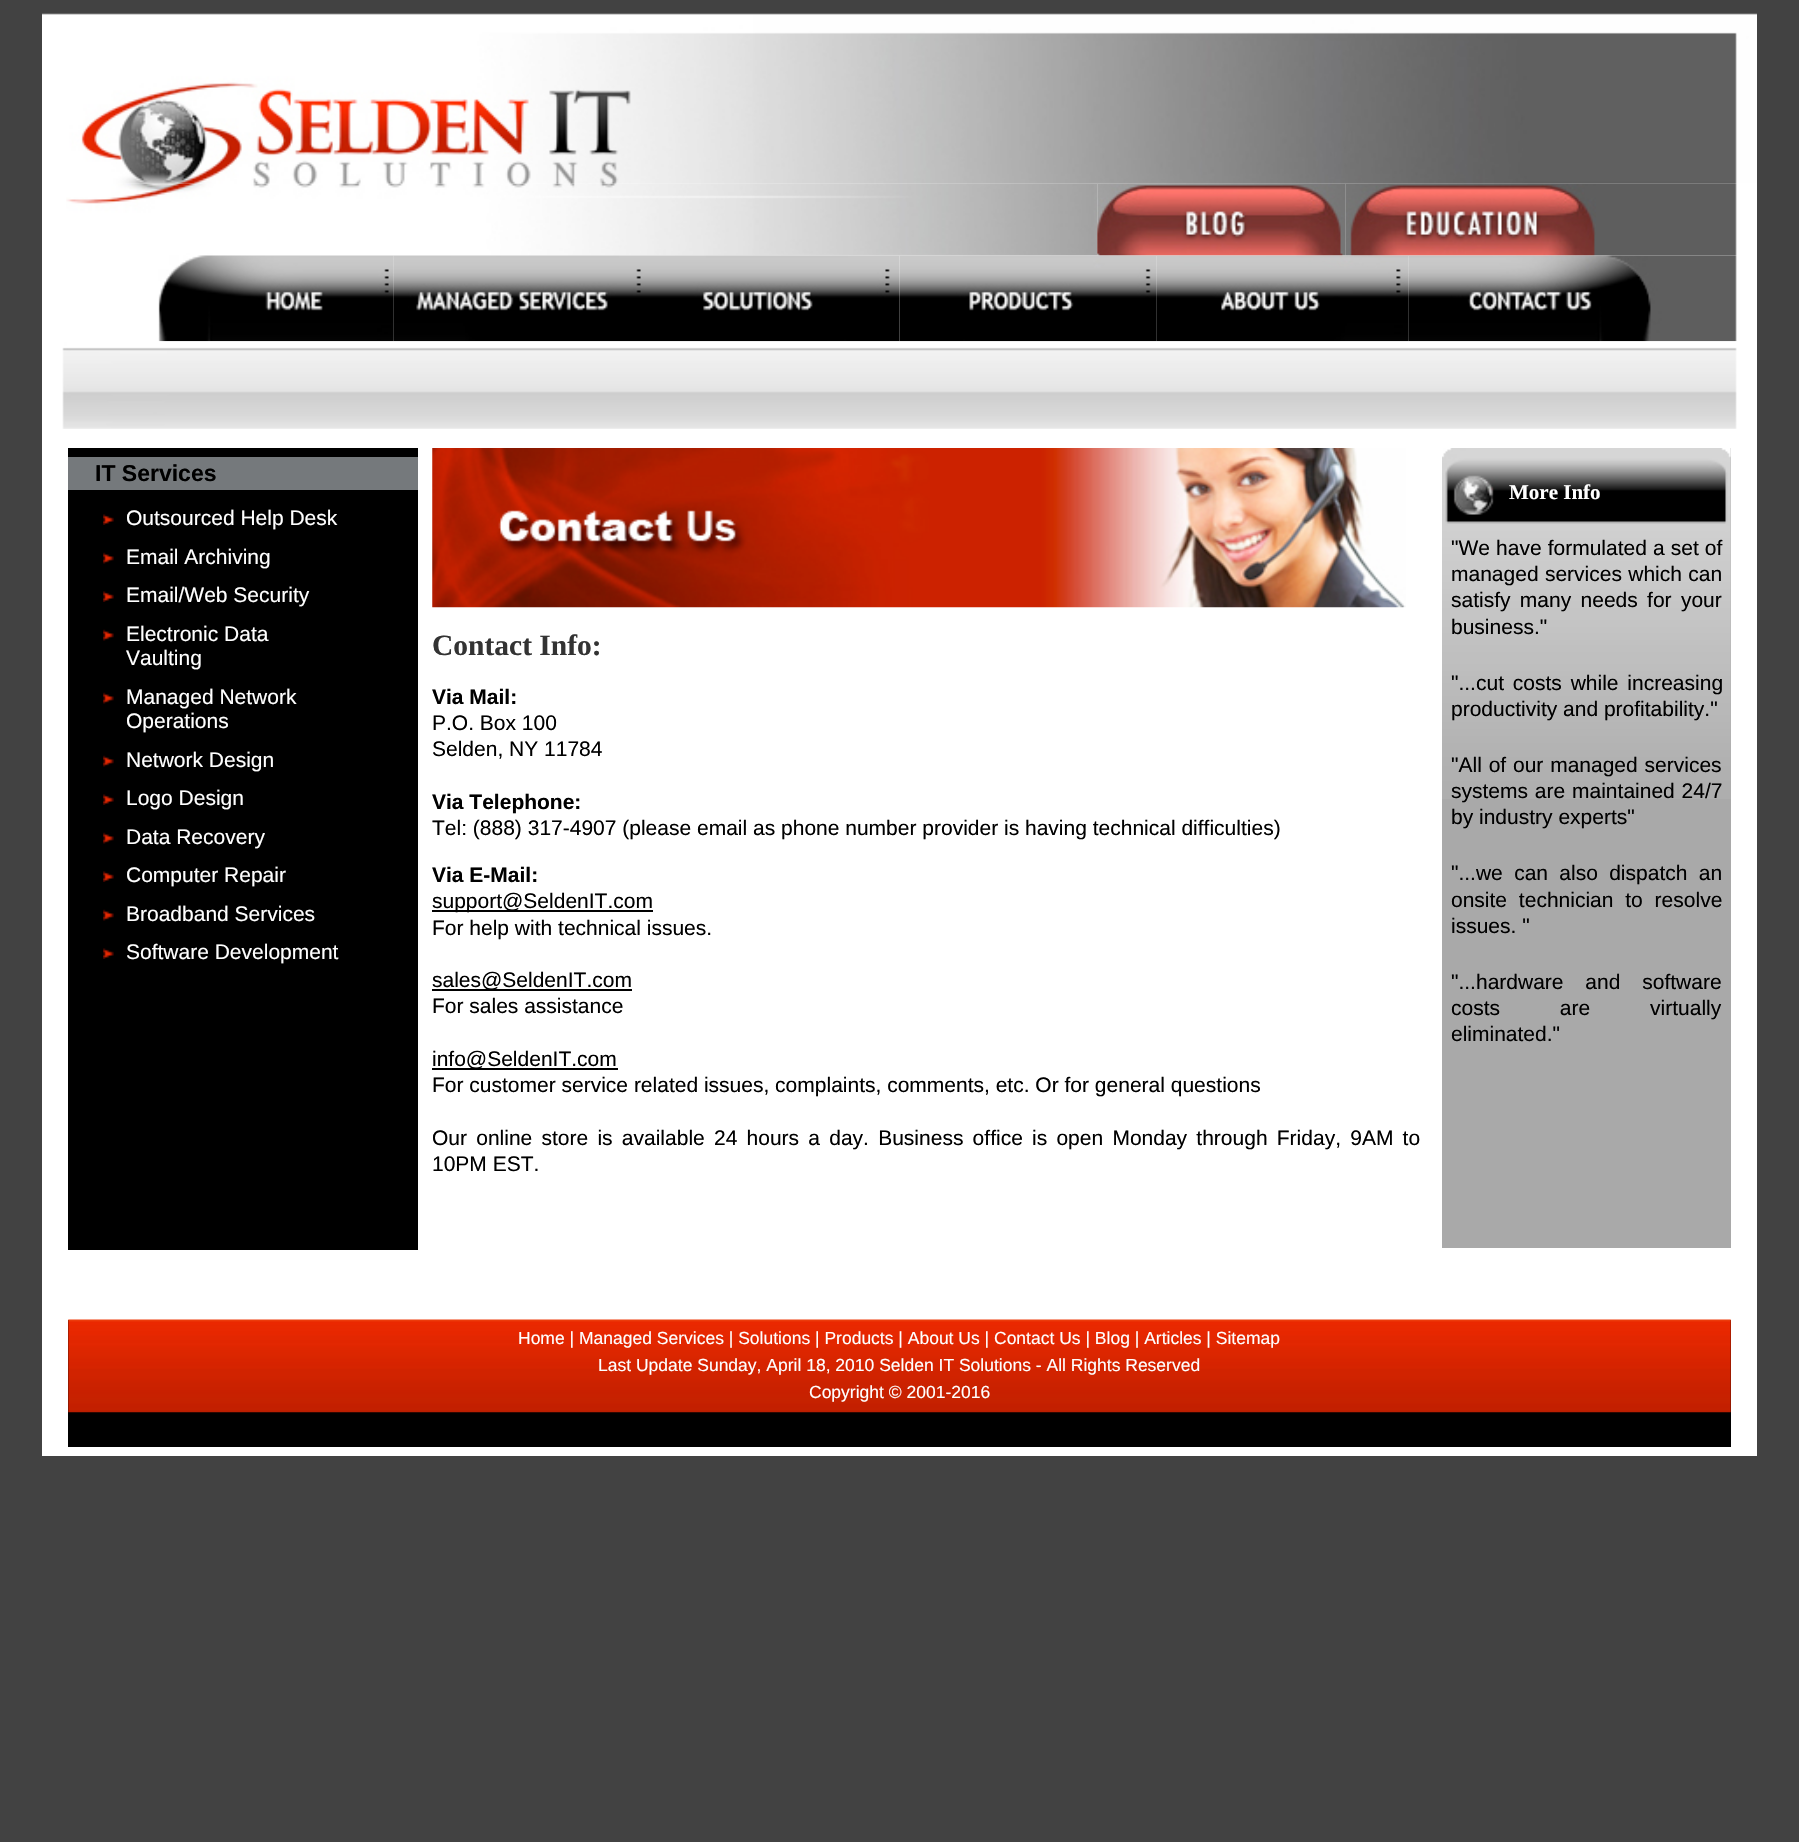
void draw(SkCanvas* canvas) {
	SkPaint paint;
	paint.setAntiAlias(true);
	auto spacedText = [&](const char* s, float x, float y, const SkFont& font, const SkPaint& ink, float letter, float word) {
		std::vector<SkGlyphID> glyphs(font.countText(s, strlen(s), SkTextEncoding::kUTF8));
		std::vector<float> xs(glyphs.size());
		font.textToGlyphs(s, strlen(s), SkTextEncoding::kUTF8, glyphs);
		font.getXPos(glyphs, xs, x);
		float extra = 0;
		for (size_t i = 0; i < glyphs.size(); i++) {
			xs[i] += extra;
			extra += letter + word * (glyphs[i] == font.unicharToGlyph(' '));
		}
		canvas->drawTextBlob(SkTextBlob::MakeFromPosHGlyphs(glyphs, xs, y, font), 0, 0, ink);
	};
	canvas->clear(0xff424242);
	paint.setColor(0xffffffff);
	canvas->drawRect(SkRect::MakeXYWH(42, 183, 1715, 1273), paint);
	canvas->drawImageRect(SkImages::DeferredFromEncodedData(SkData::MakeFromFileName("img1.png")), SkRect::MakeXYWH(42, 7, 1715, 177), SkSamplingOptions());
	canvas->drawImageRect(SkImages::DeferredFromEncodedData(SkData::MakeFromFileName("img2.png")), SkRect::MakeXYWH(66, 183, 1032, 73), SkSamplingOptions());
	canvas->drawImageRect(SkImages::DeferredFromEncodedData(SkData::MakeFromFileName("img3.png")), SkRect::MakeXYWH(1097, 183, 249, 73), SkSamplingOptions());
	canvas->drawImageRect(SkImages::DeferredFromEncodedData(SkData::MakeFromFileName("img4.png")), SkRect::MakeXYWH(1345, 183, 251, 73), SkSamplingOptions());
	canvas->drawImageRect(SkImages::DeferredFromEncodedData(SkData::MakeFromFileName("img5.png")), SkRect::MakeXYWH(1596, 183, 141, 73), SkSamplingOptions());
	canvas->drawImageRect(SkImages::DeferredFromEncodedData(SkData::MakeFromFileName("img6.png")), SkRect::MakeXYWH(158, 255, 236, 87), SkSamplingOptions());
	canvas->drawImageRect(SkImages::DeferredFromEncodedData(SkData::MakeFromFileName("img7.png")), SkRect::MakeXYWH(393, 255, 258, 87), SkSamplingOptions());
	canvas->drawImageRect(SkImages::DeferredFromEncodedData(SkData::MakeFromFileName("img8.png")), SkRect::MakeXYWH(651, 255, 249, 87), SkSamplingOptions());
	canvas->drawImageRect(SkImages::DeferredFromEncodedData(SkData::MakeFromFileName("img9.png")), SkRect::MakeXYWH(899, 255, 258, 87), SkSamplingOptions());
	canvas->drawImageRect(SkImages::DeferredFromEncodedData(SkData::MakeFromFileName("img10.png")), SkRect::MakeXYWH(1156, 255, 253, 87), SkSamplingOptions());
	canvas->drawImageRect(SkImages::DeferredFromEncodedData(SkData::MakeFromFileName("img11.png")), SkRect::MakeXYWH(1408, 255, 329, 87), SkSamplingOptions());
	canvas->drawImageRect(SkImages::DeferredFromEncodedData(SkData::MakeFromFileName("img12.png")), SkRect::MakeXYWH(62, 341, 1675, 88), SkSamplingOptions());
	paint.setColor(0xff000000);
	canvas->drawRect(SkRect::MakeXYWH(68, 448, 350, 802), paint);
	paint.setColor(0xff75797c);
	canvas->drawRect(SkRect::MakeXYWH(68, 457, 350, 33), paint);
	SkFont f1(fontMgr->matchFamilyStyle("Liberation Sans", SkFontStyle::Bold()), 23);
	f1.setSubpixel(true);
	paint.setColor(0xff000000);
	canvas->drawString("IT Services", 95, 481, f1, paint);
	canvas->drawImageRect(SkImages::DeferredFromEncodedData(SkData::MakeFromFileName("img13.png")), SkRect::MakeXYWH(103, 514, 11, 11), SkSamplingOptions());
	SkFont f2(fontMgr->matchFamilyStyle("Liberation Sans", SkFontStyle::Normal()), 21);
	f2.setSubpixel(true);
	paint.setColor(0xffffffff);
	canvas->drawString("Outsourced Help Desk", 126, 525, f2, paint);
	canvas->drawImageRect(SkImages::DeferredFromEncodedData(SkData::MakeFromFileName("img14.png")), SkRect::MakeXYWH(103, 552, 11, 12), SkSamplingOptions());
	canvas->drawString("Email Archiving", 126, 564, f2, paint);
	canvas->drawImageRect(SkImages::DeferredFromEncodedData(SkData::MakeFromFileName("img13.png")), SkRect::MakeXYWH(103, 591, 11, 11), SkSamplingOptions());
	canvas->drawString("Email/Web Security", 126, 602, f2, paint);
	canvas->drawImageRect(SkImages::DeferredFromEncodedData(SkData::MakeFromFileName("img14.png")), SkRect::MakeXYWH(103, 629, 11, 12), SkSamplingOptions());
	canvas->drawString("Electronic Data", 126, 641, f2, paint);
	canvas->drawString("Vaulting", 126, 665, f2, paint);
	canvas->drawImageRect(SkImages::DeferredFromEncodedData(SkData::MakeFromFileName("img14.png")), SkRect::MakeXYWH(103, 692, 11, 12), SkSamplingOptions());
	canvas->drawString("Managed Network", 126, 704, f2, paint);
	canvas->drawString("Operations", 126, 728, f2, paint);
	canvas->drawImageRect(SkImages::DeferredFromEncodedData(SkData::MakeFromFileName("img14.png")), SkRect::MakeXYWH(103, 755, 11, 12), SkSamplingOptions());
	canvas->drawString("Network Design", 126, 767, f2, paint);
	canvas->drawImageRect(SkImages::DeferredFromEncodedData(SkData::MakeFromFileName("img13.png")), SkRect::MakeXYWH(103, 794, 11, 11), SkSamplingOptions());
	canvas->drawString("Logo Design", 126, 805, f2, paint);
	canvas->drawImageRect(SkImages::DeferredFromEncodedData(SkData::MakeFromFileName("img14.png")), SkRect::MakeXYWH(103, 832, 11, 12), SkSamplingOptions());
	canvas->drawString("Data Recovery", 126, 844, f2, paint);
	canvas->drawImageRect(SkImages::DeferredFromEncodedData(SkData::MakeFromFileName("img13.png")), SkRect::MakeXYWH(103, 871, 11, 11), SkSamplingOptions());
	canvas->drawString("Computer Repair", 126, 882, f2, paint);
	canvas->drawImageRect(SkImages::DeferredFromEncodedData(SkData::MakeFromFileName("img14.png")), SkRect::MakeXYWH(103, 909, 11, 12), SkSamplingOptions());
	canvas->drawString("Broadband Services", 126, 921, f2, paint);
	canvas->drawImageRect(SkImages::DeferredFromEncodedData(SkData::MakeFromFileName("img13.png")), SkRect::MakeXYWH(103, 948, 11, 11), SkSamplingOptions());
	canvas->drawString("Software Development", 126, 959, f2, paint);
	canvas->drawImageRect(SkImages::DeferredFromEncodedData(SkData::MakeFromFileName("img15.png")), SkRect::MakeXYWH(432, 448, 974, 160), SkSamplingOptions());
	SkFont f3(fontMgr->matchFamilyStyle("Liberation Serif", SkFontStyle::Bold()), 29.5);
	f3.setSubpixel(true);
	paint.setColor(0xff333333);
	canvas->drawString("Contact Info:", 432, 655, f3, paint);
	SkFont f4(fontMgr->matchFamilyStyle("Liberation Sans", SkFontStyle::Bold()), 21);
	f4.setSubpixel(true);
	paint.setColor(0xff000000);
	canvas->drawString("Via Mail:", 432, 704, f4, paint);
	canvas->drawString("P.O. Box 100", 432, 730, f2, paint);
	canvas->drawString("Selden, NY 11784", 432, 756, f2, paint);
	canvas->drawString("Via Telephone:", 432, 809, f4, paint);
	canvas->drawString("Tel: (888) 317-4907 (please email as phone number provider is having technical difficulties)", 432, 835, f2, paint);
	canvas->drawString("Via E-Mail:", 432, 882, f4, paint);
	canvas->drawRect(SkRect::MakeXYWH(432, 910, 221, 2), paint);
	canvas->drawString("support@SeldenIT.com", 432, 908, f2, paint);
	canvas->drawString("For help with technical issues.", 432, 935, f2, paint);
	canvas->drawRect(SkRect::MakeXYWH(432, 989, 200, 2), paint);
	canvas->drawString("sales@SeldenIT.com", 432, 987, f2, paint);
	canvas->drawString("For sales assistance", 432, 1013, f2, paint);
	canvas->drawRect(SkRect::MakeXYWH(432, 1068, 186, 2), paint);
	canvas->drawString("info@SeldenIT.com", 432, 1066, f2, paint);
	canvas->drawString("For customer service related issues, complaints, comments, etc. Or for general questions", 432, 1092, f2, paint);
	spacedText("Our online store is available 24 hours a day. Business office is open Monday through Friday, 9AM to", 432, 1145, f2, paint, 0, 3.4);
	canvas->drawString("10PM EST.", 432, 1171, f2, paint);
	paint.setColor(0xffa9a9a9);
	canvas->drawRect(SkRect::MakeXYWH(1442, 448, 289, 800), paint);
	canvas->drawImageRect(SkImages::DeferredFromEncodedData(SkData::MakeFromFileName("img16.png")), SkRect::MakeXYWH(1442, 448, 289, 351), SkSamplingOptions());
	SkFont f5(fontMgr->matchFamilyStyle("Liberation Serif", SkFontStyle::Bold()), 21);
	f5.setSubpixel(true);
	paint.setColor(0xffffffff);
	canvas->drawString("More Info", 1509, 499, f5, paint);
	paint.setColor(0xff000000);
	spacedText("\"We have formulated a set of", 1451, 555, f2, paint, 0, 0.25);
	spacedText("managed services which can", 1451, 581, f2, paint, 0, 0.5);
	spacedText("satisfy many needs for your", 1451, 607, f2, paint, 0, 3.5);
	canvas->drawString("business.\"", 1451, 634, f2, paint);
	spacedText("\"...cut costs while increasing", 1451, 690, f2, paint, 0, 3);
	canvas->drawString("productivity and profitability.\"", 1451, 716, f2, paint);
	spacedText("\"All of our managed services", 1451, 772, f2, paint, 0, 1);
	spacedText("systems are maintained 24/7", 1451, 798, f2, paint, 0, 1);
	canvas->drawString("by industry experts\"", 1451, 824, f2, paint);
	spacedText("\"...we can also dispatch an", 1451, 880, f2, paint, 0, 5.5);
	spacedText("onsite technician to resolve", 1451, 907, f2, paint, 0, 6);
	canvas->drawString("issues. \"", 1451, 933, f2, paint);
	spacedText("\"...hardware and software", 1451, 989, f2, paint, 0, 16);
	spacedText("costs are virtually", 1451, 1015, f2, paint, 0, 54);
	canvas->drawString("eliminated.\"", 1451, 1041, f2, paint);
	canvas->drawRect(SkRect::MakeXYWH(68, 1320, 1663, 127), paint);
	canvas->drawImageRect(SkImages::DeferredFromEncodedData(SkData::MakeFromFileName("img17.png")), SkRect::MakeXYWH(68, 1319, 1663, 94), SkSamplingOptions());
	SkFont f6(fontMgr->matchFamilyStyle("Liberation Sans", SkFontStyle::Normal()), 17.5);
	f6.setSubpixel(true);
	paint.setColor(0xffffffff);
	canvas->drawString("Home | Managed Services | Solutions | Products | About Us | Contact Us | Blog | Articles | Sitemap", 518, 1344, f6, paint);
	canvas->drawString("Last Update Sunday, April 18, 2010 Selden IT Solutions - All Rights Reserved", 598, 1371, f6, paint);
	canvas->drawString("Copyright © 2001-2016", 809, 1398, f6, paint);
}
